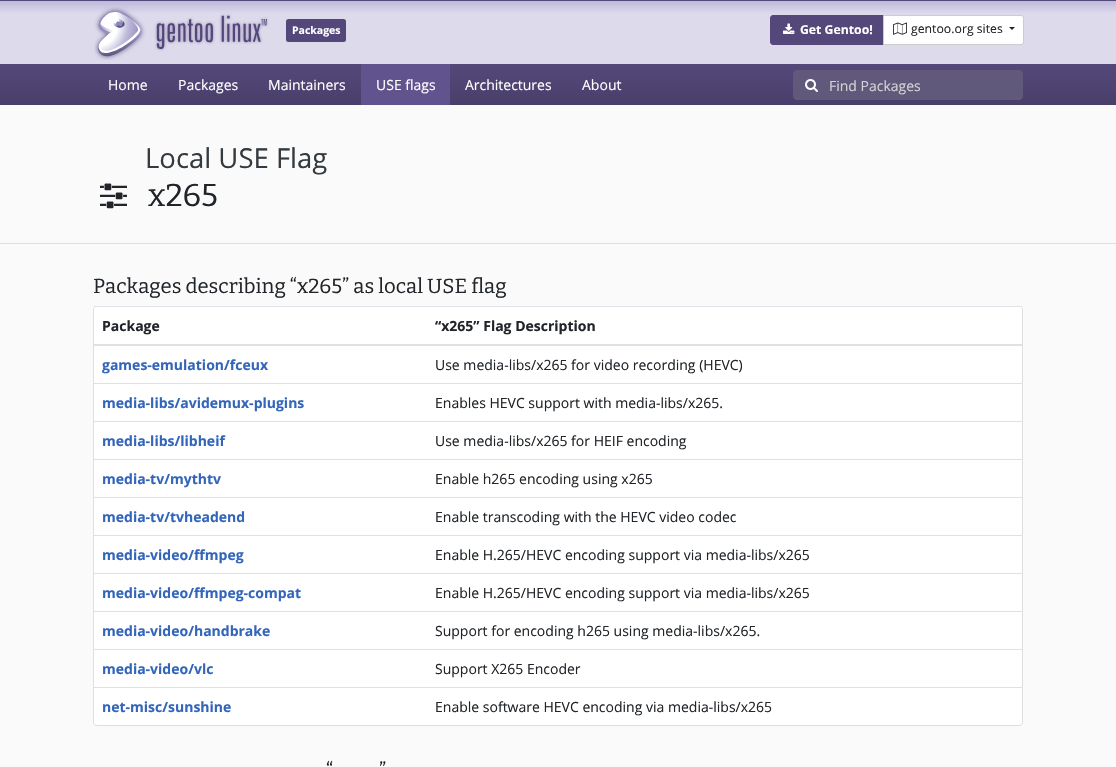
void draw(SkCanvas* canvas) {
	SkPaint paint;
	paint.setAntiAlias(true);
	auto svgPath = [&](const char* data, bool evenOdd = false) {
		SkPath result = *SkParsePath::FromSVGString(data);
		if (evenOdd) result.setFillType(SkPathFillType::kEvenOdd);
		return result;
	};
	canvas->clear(0xfffafafa);
	paint.setColor(0xff54487a);
	canvas->drawRect(SkRect::MakeXYWH(0, 0, 1116, 1), paint);
	{
		const SkColor colors[] = {0xffbeb8db, 0xffdddaec};
		const float stops[] = {0, 0.2};
		const SkPoint ends[] = {{558, 1}, {558, 64}};
		paint.setShader(SkGradientShader::MakeLinear(ends, colors, stops, 2, SkTileMode::kClamp));
		paint.setAlpha(255);
	}
	canvas->drawRect(SkRect::MakeXYWH(0, 1, 1116, 63), paint);
	canvas->drawImageRect(SkImages::DeferredFromEncodedData(SkData::MakeFromFileName("img1.png")), SkRect::MakeXYWH(94, 7, 175, 53), SkSamplingOptions());
	paint.setShader(nullptr);
	paint.setColor(0xff54487a);
	canvas->drawRoundRect(SkRect::MakeXYWH(286, 19, 60, 23), 2.5, 2.5, paint);
	SkFont f1(fontMgr->matchFamilyStyle("Open Sans", SkFontStyle::Bold()), 10.5);
	f1.setSubpixel(true);
	paint.setColor(0xffffffff);
	canvas->drawString("Packages", 292, 34, f1, paint);
	paint.setColor(0xff54487a);
	canvas->drawPath(svgPath("M773 15.5H883.5V44.5H773C771.5 44.5 770.5 43.5 770.5 42V18C770.5 16.5 771.5 15.5 773 15.5Z"), paint);
	paint.setStroke(true);
	paint.setStrokeWidth(1);
	canvas->drawPath(svgPath("M773 15.5H883.5V44.5H773C771.5 44.5 770.5 43.5 770.5 42V18C770.5 16.5 771.5 15.5 773 15.5Z"), paint);
	canvas->drawImageRect(SkImages::DeferredFromEncodedData(SkData::MakeFromFileName("img2.png")), SkRect::MakeXYWH(783, 23, 12, 11), SkSamplingOptions());
	SkFont f2(fontMgr->matchFamilyStyle("Open Sans", SkFontStyle::Bold()), 12.25);
	f2.setSubpixel(true);
	paint.setStroke(false);
	paint.setColor(0xffffffff);
	canvas->drawString("Get Gentoo!", 800, 34, f2, paint);
	canvas->drawPath(svgPath("M883.5 15.5H1021C1022.5 15.5 1023.5 16.5 1023.5 18V42C1023.5 43.5 1022.5 44.5 1021 44.5H883.5Z"), paint);
	paint.setStroke(true);
	paint.setColor(0xffcccccc);
	canvas->drawPath(svgPath("M883.5 15.5H1021C1022.5 15.5 1023.5 16.5 1023.5 18V42C1023.5 43.5 1022.5 44.5 1021 44.5H883.5Z"), paint);
	canvas->drawImageRect(SkImages::DeferredFromEncodedData(SkData::MakeFromFileName("img3.png")), SkRect::MakeXYWH(893, 22, 14, 13), SkSamplingOptions());
	SkFont f3(fontMgr->matchFamilyStyle("Open Sans", SkFontStyle::Normal()), 12.25);
	f3.setSubpixel(true);
	paint.setStroke(false);
	paint.setColor(0xff212529);
	canvas->drawString("gentoo.org sites", 911, 33, f3, paint);
	canvas->drawPath(svgPath("M1009 27H1015L1012 30Z"), paint);
	{
		const SkColor colors[] = {0xff54487a, 0xff493f6a};
		const float stops[] = {0, 1};
		const SkPoint ends[] = {{558, 64}, {558, 105}};
		paint.setShader(SkGradientShader::MakeLinear(ends, colors, stops, 2, SkTileMode::kClamp));
		paint.setAlpha(255);
	}
	canvas->drawRect(SkRect::MakeXYWH(0, 64, 1116, 41), paint);
	SkFont f4(fontMgr->matchFamilyStyle("Open Sans", SkFontStyle::Normal()), 14);
	f4.setSubpixel(true);
	paint.setShader(nullptr);
	paint.setColor(0xffffffff);
	canvas->drawString("Home", 108, 90, f4, paint);
	canvas->drawString("Packages", 178, 90, f4, paint);
	canvas->drawString("Maintainers", 268, 90, f4, paint);
	paint.setColor(0xff61538d);
	canvas->drawRect(SkRect::MakeXYWH(361, 64, 89, 41), paint);
	paint.setColor(0xffffffff);
	canvas->drawString("USE flags", 376, 90, f4, paint);
	canvas->drawString("Architectures", 465, 90, f4, paint);
	canvas->drawString("About", 582, 90, f4, paint);
	paint.setColor(0xff61597b);
	canvas->drawPath(svgPath("M797 70H830V100H797C795 100 793 98 793 96V74C793 72 795 70 797 70Z"), paint);
	canvas->drawImageRect(SkImages::DeferredFromEncodedData(SkData::MakeFromFileName("img4.png")), SkRect::MakeXYWH(805, 79, 13, 13), SkSamplingOptions());
	canvas->drawPath(svgPath("M829 70H1019C1021 70 1023 72 1023 74V96C1023 98 1021 100 1019 100H829Z"), paint);
	paint.setColor(0xffd3d3d3);
	canvas->drawString("Find Packages", 829, 91, f4, paint);
	SkFont f5(fontMgr->matchFamilyStyle("Open Sans", SkFontStyle::Normal()), 27.5);
	f5.setSubpixel(true);
	paint.setColor(0xff343a40);
	canvas->drawString("Local USE Flag", 145, 168, f5, paint);
	canvas->drawImageRect(SkImages::DeferredFromEncodedData(SkData::MakeFromFileName("img5.png")), SkRect::MakeXYWH(100, 183, 27, 26), SkSamplingOptions());
	SkFont f6(fontMgr->matchFamilyStyle("Bitter", SkFontStyle::Normal()), 31.5);
	f6.setSubpixel(true);
	paint.setColor(0xff212529);
	canvas->drawString("x265", 148, 206, f6, paint);
	paint.setColor(0xffdddddd);
	canvas->drawRect(SkRect::MakeXYWH(0, 243, 1116, 1), paint);
	SkFont f7(fontMgr->matchFamilyStyle("Bitter", SkFontStyle::Normal()), 20.3);
	f7.setSubpixel(true);
	paint.setColor(0xff212529);
	canvas->drawString("Packages describing “x265” as local USE flag", 93, 293, f7, paint);
	paint.setColor(0xffffffff);
	canvas->drawRoundRect(SkRect::MakeXYWH(93, 306, 930, 420), 4, 4, paint);
	paint.setColor(0xffdfdfdf);
	canvas->drawPath(svgPath("M97 306H1019C1021 306 1023 308 1023 310V722C1023 724 1021 726 1019 726H97C95 726 93 724 93 722V310C93 308 95 306 97 306ZM97 306H1019C1021 306 1022 308 1022 310V722C1022 724 1021 725 1019 725H97C95 725 94 724 94 722V310C94 308 95 306 97 306Z", true), paint);
	SkFont f8(fontMgr->matchFamilyStyle("Open Sans", SkFontStyle::Bold()), 14);
	f8.setSubpixel(true);
	paint.setColor(0xff212529);
	canvas->drawString("Package", 102, 331, f8, paint);
	paint.setColor(0xffdee2e6);
	canvas->drawRect(SkRect::MakeXYWH(94, 306, 928, 1), paint);
	canvas->drawRect(SkRect::MakeXYWH(94, 344, 928, 2), paint);
	paint.setColor(0xff212529);
	canvas->drawString("“x265” Flag Description", 435, 331, f8, paint);
	paint.setColor(0xff3366bb);
	canvas->drawString("games-emulation/fceux", 102, 370, f8, paint);
	paint.setColor(0xff212529);
	canvas->drawString("Use media-libs/x265 for video recording (HEVC)", 435, 370, f4, paint);
	paint.setColor(0xff3366bb);
	canvas->drawString("media-libs/avidemux-plugins", 102, 408, f8, paint);
	paint.setColor(0xffdee2e6);
	canvas->drawRect(SkRect::MakeXYWH(94, 383, 928, 1), paint);
	paint.setColor(0xff212529);
	canvas->drawString("Enables HEVC support with media-libs/x265.", 435, 408, f4, paint);
	paint.setColor(0xff3366bb);
	canvas->drawString("media-libs/libheif", 102, 446, f8, paint);
	paint.setColor(0xffdee2e6);
	canvas->drawRect(SkRect::MakeXYWH(94, 421, 928, 1), paint);
	paint.setColor(0xff212529);
	canvas->drawString("Use media-libs/x265 for HEIF encoding", 435, 446, f4, paint);
	paint.setColor(0xff3366bb);
	canvas->drawString("media-tv/mythtv", 102, 484, f8, paint);
	paint.setColor(0xffdee2e6);
	canvas->drawRect(SkRect::MakeXYWH(94, 459, 928, 1), paint);
	paint.setColor(0xff212529);
	canvas->drawString("Enable h265 encoding using x265", 435, 484, f4, paint);
	paint.setColor(0xff3366bb);
	canvas->drawString("media-tv/tvheadend", 102, 522, f8, paint);
	paint.setColor(0xffdee2e6);
	canvas->drawRect(SkRect::MakeXYWH(94, 497, 928, 1), paint);
	paint.setColor(0xff212529);
	canvas->drawString("Enable transcoding with the HEVC video codec", 435, 522, f4, paint);
	paint.setColor(0xff3366bb);
	canvas->drawString("media-video/ffmpeg", 102, 560, f8, paint);
	paint.setColor(0xffdee2e6);
	canvas->drawRect(SkRect::MakeXYWH(94, 535, 928, 1), paint);
	paint.setColor(0xff212529);
	canvas->drawString("Enable H.265/HEVC encoding support via media-libs/x265", 435, 560, f4, paint);
	paint.setColor(0xff3366bb);
	canvas->drawString("media-video/ffmpeg-compat", 102, 598, f8, paint);
	paint.setColor(0xffdee2e6);
	canvas->drawRect(SkRect::MakeXYWH(94, 573, 928, 1), paint);
	paint.setColor(0xff212529);
	canvas->drawString("Enable H.265/HEVC encoding support via media-libs/x265", 435, 598, f4, paint);
	paint.setColor(0xff3366bb);
	canvas->drawString("media-video/handbrake", 102, 636, f8, paint);
	paint.setColor(0xffdee2e6);
	canvas->drawRect(SkRect::MakeXYWH(94, 611, 928, 1), paint);
	paint.setColor(0xff212529);
	canvas->drawString("Support for encoding h265 using media-libs/x265.", 435, 636, f4, paint);
	paint.setColor(0xff3366bb);
	canvas->drawString("media-video/vlc", 102, 674, f8, paint);
	paint.setColor(0xffdee2e6);
	canvas->drawRect(SkRect::MakeXYWH(94, 649, 928, 1), paint);
	paint.setColor(0xff212529);
	canvas->drawString("Support X265 Encoder", 435, 674, f4, paint);
	paint.setColor(0xff3366bb);
	canvas->drawString("net-misc/sunshine", 102, 712, f8, paint);
	paint.setColor(0xffdee2e6);
	canvas->drawRect(SkRect::MakeXYWH(94, 687, 928, 1), paint);
	paint.setColor(0xff212529);
	canvas->drawString("Enable software HEVC encoding via media-libs/x265", 435, 712, f4, paint);
	canvas->drawString("“", 326, 777, f7, paint);
	canvas->drawString("”", 379, 777, f7, paint);
}
